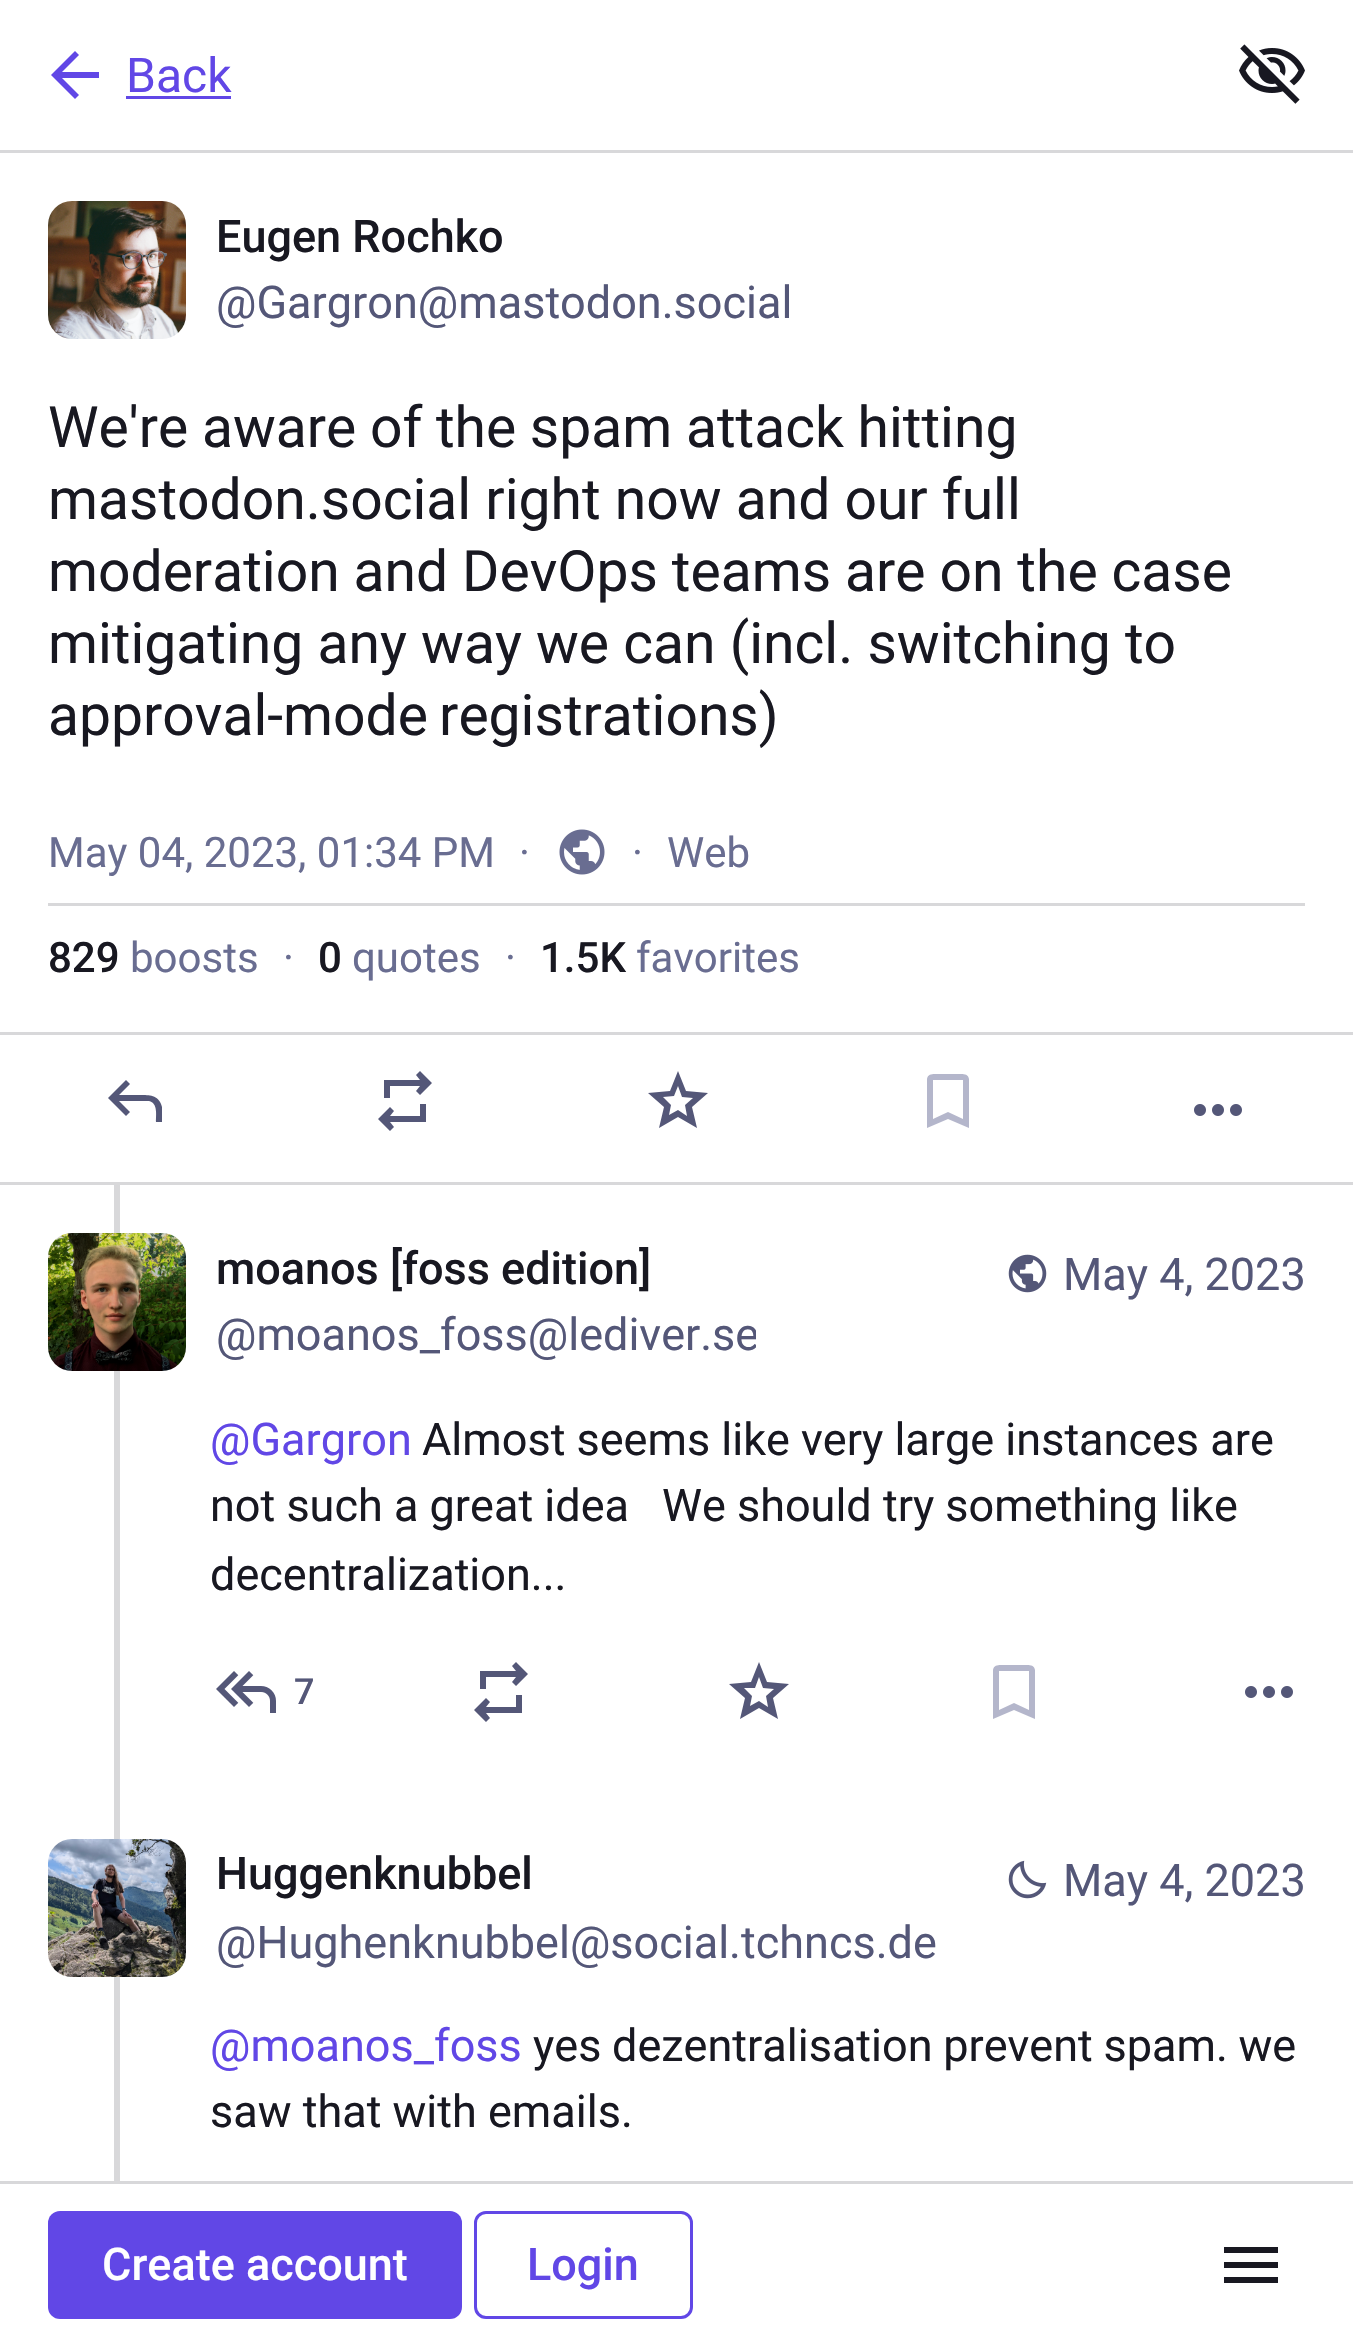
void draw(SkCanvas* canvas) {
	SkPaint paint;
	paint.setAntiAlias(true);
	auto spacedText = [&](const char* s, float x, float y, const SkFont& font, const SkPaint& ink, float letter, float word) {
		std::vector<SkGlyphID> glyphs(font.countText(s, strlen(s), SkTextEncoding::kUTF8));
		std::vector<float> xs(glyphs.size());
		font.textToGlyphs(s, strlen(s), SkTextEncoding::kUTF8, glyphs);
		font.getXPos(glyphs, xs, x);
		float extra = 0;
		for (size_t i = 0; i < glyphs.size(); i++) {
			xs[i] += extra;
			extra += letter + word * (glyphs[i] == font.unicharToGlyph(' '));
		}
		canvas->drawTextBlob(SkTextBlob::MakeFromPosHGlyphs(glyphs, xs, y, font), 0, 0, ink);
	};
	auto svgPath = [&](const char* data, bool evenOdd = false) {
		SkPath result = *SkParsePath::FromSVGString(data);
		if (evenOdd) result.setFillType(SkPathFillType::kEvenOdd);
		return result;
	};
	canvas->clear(0xffffffff);
	paint.setColor(0xffd8d8da);
	canvas->drawRect(SkRect::MakeXYWH(0, 150, 1353, 3), paint);
	paint.setColor(0xff6147e6);
	canvas->drawPath(svgPath("M62 78L79 95L75 99L51 75L75 51L79 55L62 72H99V78Z"), paint);
	SkFont f1(fontMgr->matchFamilyStyle("Roboto", SkFontStyle::Normal()), 48);
	f1.setSubpixel(true);
	canvas->drawString("Back", 126, 92, f1, paint);
	canvas->drawRect(SkRect::MakeXYWH(126, 96, 105, 3), paint);
	canvas->drawImageRect(SkImages::DeferredFromEncodedData(SkData::MakeFromFileName("img1.png")), SkRect::MakeXYWH(1239, 44, 66, 60), SkSamplingOptions());
	canvas->drawImageRect(SkImages::DeferredFromEncodedData(SkData::MakeFromFileName("img2.png")), SkRect::MakeXYWH(48, 201, 138, 138), SkSamplingOptions());
	SkFont f2(fontMgr->matchFamilyStyle("Roboto", SkFontStyle(500, SkFontStyle::kNormal_Width, SkFontStyle::kUpright_Slant)), 45);
	f2.setSubpixel(true);
	paint.setColor(0xff181821);
	canvas->drawString("Eugen Rochko", 216, 252, f2, paint);
	SkFont f3(fontMgr->matchFamilyStyle("Roboto", SkFontStyle::Normal()), 45);
	f3.setSubpixel(true);
	paint.setColor(0xff545778);
	canvas->drawString("@Gargron@mastodon.social", 216, 318, f3, paint);
	SkFont f4(fontMgr->matchFamilyStyle("Roboto", SkFontStyle::Normal()), 57);
	f4.setSubpixel(true);
	paint.setColor(0xff181821);
	spacedText("We're aware of the spam attack hitting", 48, 447, f4, paint, 0, -0.5);
	canvas->drawString("mastodon.social right now and our full", 48, 519, f4, paint);
	spacedText("moderation and DevOps teams are on the case", 48, 591, f4, paint, 0, -0.25);
	canvas->drawString("mitigating any way we can (incl. switching to", 48, 663, f4, paint);
	spacedText("approval-mode registrations)", 48, 735, f4, paint, 0, -3);
	paint.setColor(0xffd8d8da);
	canvas->drawRect(SkRect::MakeXYWH(48, 903, 1257, 3), paint);
	SkFont f5(fontMgr->matchFamilyStyle("Roboto", SkFontStyle::Normal()), 42);
	f5.setSubpixel(true);
	paint.setColor(0xff696d91);
	canvas->drawString("May 04, 2023, 01:34 PM", 48, 867, f5, paint);
	canvas->drawString("·", 519, 867, f5, paint);
	canvas->drawImageRect(SkImages::DeferredFromEncodedData(SkData::MakeFromFileName("img3.png")), SkRect::MakeXYWH(559, 829, 46, 46), SkSamplingOptions());
	canvas->drawString("·", 632, 867, f5, paint);
	canvas->drawString("Web", 667, 867, f5, paint);
	SkFont f6(fontMgr->matchFamilyStyle("Roboto", SkFontStyle(500, SkFontStyle::kNormal_Width, SkFontStyle::kUpright_Slant)), 42);
	f6.setSubpixel(true);
	paint.setColor(0xff181821);
	canvas->drawString("829", 48, 972, f6, paint);
	paint.setColor(0xff696d91);
	canvas->drawString("boosts", 130, 972, f5, paint);
	canvas->drawString("·", 283, 972, f5, paint);
	paint.setColor(0xff181821);
	canvas->drawString("0", 318, 972, f6, paint);
	paint.setColor(0xff696d91);
	canvas->drawString("quotes", 352, 972, f5, paint);
	canvas->drawString("·", 505, 972, f5, paint);
	paint.setColor(0xff181821);
	canvas->drawString("1.5K", 540, 972, f6, paint);
	paint.setColor(0xff696d91);
	canvas->drawString("favorites", 636, 972, f5, paint);
	paint.setColor(0xffd8d8da);
	canvas->drawRect(SkRect::MakeXYWH(0, 1032, 1353, 3), paint);
	canvas->drawRect(SkRect::MakeXYWH(0, 1182, 1353, 3), paint);
	paint.setColor(0xff545778);
	canvas->drawPath(svgPath("M156 1122C156 1115 158 1103 149 1101H119L130 1112L126 1116L108 1098L126 1080L130 1084L119 1095H138C148 1095 159 1094 162 1107V1122Z"), paint);
	canvas->drawPath(svgPath("M390 1131L378 1119L390 1107L394 1111L390 1116H420V1104H426V1122H390L394 1127ZM384 1098V1080H420L416 1075L420 1071L432 1083L420 1095L416 1091L420 1086H390V1098Z"), paint);
	canvas->drawPath(svgPath("M669 1115L678 1110L687 1116L685 1105L693 1098L682 1097L678 1086L674 1096L663 1097L671 1105ZM659 1128L664 1107L648 1093L670 1091L678 1071L686 1091L708 1093L692 1107L697 1128L678 1117ZM678 1102Z"), paint);
	paint.setColor(0xffb4b6cb);
	canvas->drawPath(svgPath("M927 1128V1079C928 1073 934 1074 938 1074H958C962 1074 968 1073 969 1079V1128L948 1119ZM933 1119L948 1112L963 1119V1080H933ZM933 1080H963Z"), paint);
	canvas->drawImageRect(SkImages::DeferredFromEncodedData(SkData::MakeFromFileName("img4.png")), SkRect::MakeXYWH(1194, 1104, 48, 12), SkSamplingOptions());
	paint.setColor(0xffd8d8da);
	canvas->drawRect(SkRect::MakeXYWH(114, 1185, 6, 996), paint);
	canvas->drawImageRect(SkImages::DeferredFromEncodedData(SkData::MakeFromFileName("img5.png")), SkRect::MakeXYWH(48, 1233, 138, 138), SkSamplingOptions());
	paint.setColor(0xff181821);
	canvas->drawString("moanos [foss edition]", 216, 1284, f2, paint);
	canvas->save();
	canvas->clipRect(SkRect::MakeXYWH(216, 1302, 540, 66));
	paint.setColor(0xff545778);
	canvas->drawString("@moanos_foss@lediver.se", 216, 1350, f3, paint);
	canvas->restore();
	canvas->drawImageRect(SkImages::DeferredFromEncodedData(SkData::MakeFromFileName("img6.png")), SkRect::MakeXYWH(1008, 1254, 39, 39), SkSamplingOptions());
	canvas->drawString("May 4, 2023", 1063, 1290, f3, paint);
	paint.setColor(0xff6147e6);
	canvas->drawString("@Gargron", 210, 1455, f3, paint);
	paint.setColor(0xff181821);
	canvas->drawString("Almost seems like very large instances are", 422, 1455, f3, paint);
	canvas->drawString("not such a great idea", 210, 1521, f3, paint);
	canvas->drawString("We should try something like", 662, 1521, f3, paint);
	canvas->drawString("decentralization...", 210, 1590, f3, paint);
	canvas->drawImageRect(SkImages::DeferredFromEncodedData(SkData::MakeFromFileName("img7.png")), SkRect::MakeXYWH(216, 1671, 60, 42), SkSamplingOptions());
	SkFont f7(fontMgr->matchFamilyStyle("Roboto", SkFontStyle(500, SkFontStyle::kNormal_Width, SkFontStyle::kUpright_Slant)), 36);
	f7.setSubpixel(true);
	paint.setColor(0xff545778);
	canvas->drawString("7", 294, 1704, f7, paint);
	canvas->drawPath(svgPath("M486 1722L474 1710L486 1698L490 1702L486 1707H516V1695H522V1713H486L490 1718ZM480 1689V1671H516L512 1666L516 1662L528 1674L516 1686L512 1682L516 1677H486V1689Z"), paint);
	canvas->drawPath(svgPath("M750 1706L759 1701L768 1707L766 1696L774 1689L763 1688L759 1677L755 1688H744L752 1696ZM740 1719L745 1698L729 1684L751 1682L759 1662L767 1682L789 1684L773 1698L778 1719L759 1708ZM759 1693Z"), paint);
	paint.setColor(0xffb4b6cb);
	canvas->drawPath(svgPath("M993 1719V1670C994 1664 1000 1665 1004 1665H1024C1028 1665 1034 1664 1035 1670V1719L1014 1710ZM999 1710L1014 1703L1029 1710V1671H999ZM999 1671H1029Z"), paint);
	canvas->drawImageRect(SkImages::DeferredFromEncodedData(SkData::MakeFromFileName("img4.png")), SkRect::MakeXYWH(1245, 1686, 48, 12), SkSamplingOptions());
	canvas->drawImageRect(SkImages::DeferredFromEncodedData(SkData::MakeFromFileName("img8.png")), SkRect::MakeXYWH(48, 1839, 138, 138), SkSamplingOptions());
	paint.setColor(0xff181821);
	canvas->drawString("Huggenknubbel", 216, 1889, f2, paint);
	paint.setColor(0xff545778);
	canvas->drawString("@Hughenknubbel@social.tchncs.de", 216, 1958, f3, paint);
	canvas->drawImageRect(SkImages::DeferredFromEncodedData(SkData::MakeFromFileName("img9.png")), SkRect::MakeXYWH(1008, 1860, 39, 39), SkSamplingOptions());
	canvas->drawString("May 4, 2023", 1063, 1896, f3, paint);
	paint.setColor(0xff6147e6);
	canvas->drawString("@moanos_foss", 210, 2061, f3, paint);
	paint.setColor(0xff181821);
	spacedText("yes dezentralisation prevent spam. we", 533, 2061, f3, paint, 0, -0.5);
	canvas->drawString("saw that with emails.", 210, 2127, f3, paint);
	paint.setColor(0xffd8d8da);
	canvas->drawRect(SkRect::MakeXYWH(0, 2181, 1353, 3), paint);
	paint.setColor(0xff6147e6);
	canvas->drawRoundRect(SkRect::MakeXYWH(48, 2211, 414, 108), 12, 12, paint);
	paint.setColor(0xffffffff);
	canvas->drawString("Create account", 102, 2280, f2, paint);
	paint.setStroke(true);
	paint.setStrokeWidth(3);
	paint.setColor(0xff6147e6);
	canvas->drawRoundRect(SkRect::MakeXYWH(475.5, 2212.5, 216, 105), 10.5, 10.5, paint);
	paint.setStroke(false);
	canvas->drawString("Login", 527, 2280, f2, paint);
	paint.setColor(0xff181821);
	canvas->drawPath(svgPath("M1224 2283V2277H1278V2283ZM1224 2268V2262H1278V2268ZM1224 2253V2247H1278V2253Z"), paint);
}
